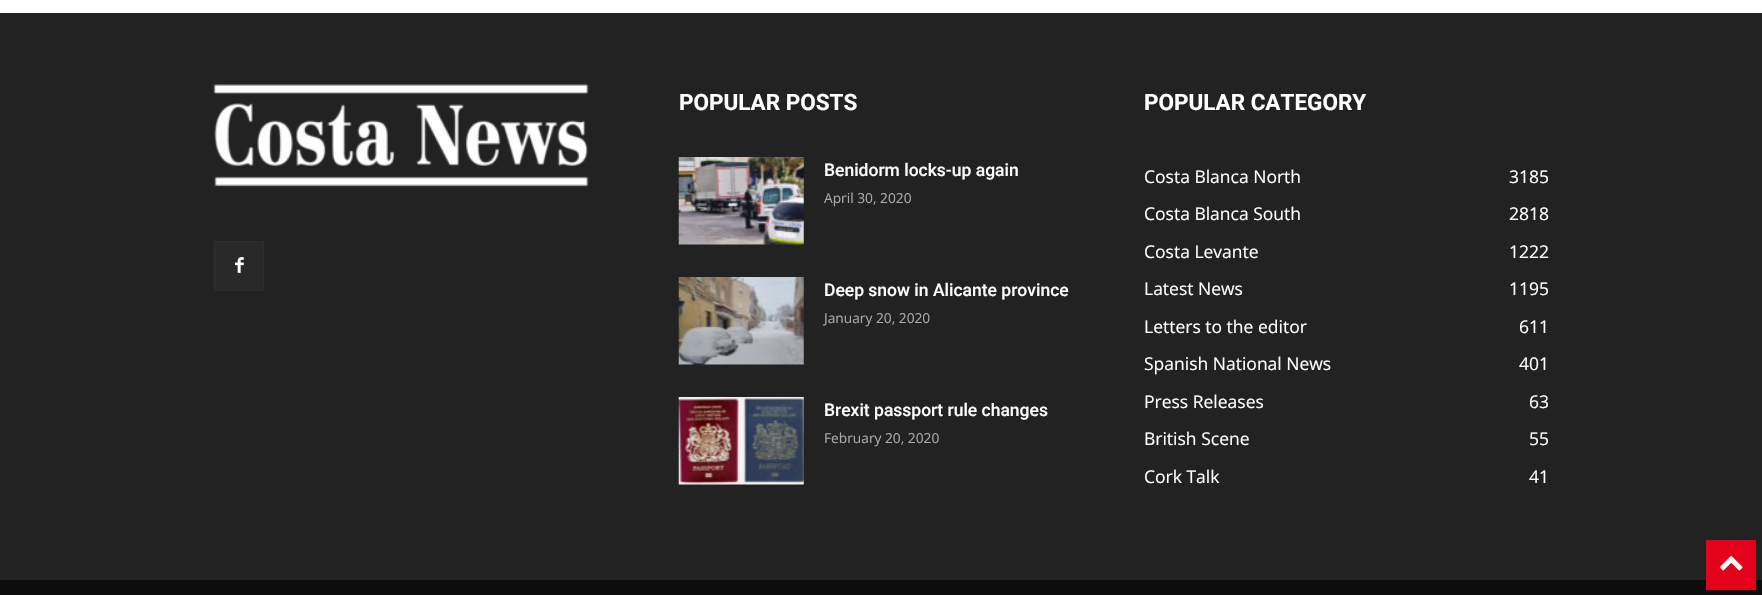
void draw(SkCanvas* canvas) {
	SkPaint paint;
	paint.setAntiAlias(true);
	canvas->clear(0xffffffff);
	paint.setColor(0xff222222);
	canvas->drawRect(SkRect::MakeXYWH(0, 13, 1762, 567), paint);
	canvas->drawImageRect(SkImages::DeferredFromEncodedData(SkData::MakeFromFileName("img1.png")), SkRect::MakeXYWH(213, 84, 376, 103), SkSamplingOptions());
	paint.setColor(0xff292929);
	canvas->drawRect(SkRect::MakeXYWH(215, 242, 48, 48), paint);
	canvas->drawImageRect(SkImages::DeferredFromEncodedData(SkData::MakeFromFileName("img2.png")), SkRect::MakeXYWH(235, 257, 9, 16), SkSamplingOptions());
	paint.setStroke(true);
	paint.setStrokeWidth(1);
	paint.setColor(0xff2f2f2f);
	canvas->drawRect(SkRect::MakeXYWH(214.5, 241.5, 49, 49), paint);
	SkFont f1(fontMgr->matchFamilyStyle("Roboto", SkFontStyle::Bold()), 22.5);
	f1.setSubpixel(true);
	paint.setStroke(false);
	paint.setColor(0xffffffff);
	canvas->drawString("POPULAR POSTS", 679, 110, f1, paint);
	canvas->drawImageRect(SkImages::DeferredFromEncodedData(SkData::MakeFromFileName("img3.png")), SkRect::MakeXYWH(678, 157, 126, 88), SkSamplingOptions());
	SkFont f2(fontMgr->matchFamilyStyle("Roboto", SkFontStyle(500, SkFontStyle::kNormal_Width, SkFontStyle::kUpright_Slant)), 17.5);
	f2.setSubpixel(true);
	canvas->drawString("Benidorm locks-up again", 824, 176, f2, paint);
	SkFont f3(fontMgr->matchFamilyStyle("Open Sans", SkFontStyle::Normal()), 13.75);
	f3.setSubpixel(true);
	paint.setColor(0xffaaaaaa);
	canvas->drawString("April 30, 2020", 824, 203, f3, paint);
	canvas->drawImageRect(SkImages::DeferredFromEncodedData(SkData::MakeFromFileName("img4.png")), SkRect::MakeXYWH(678, 277, 126, 88), SkSamplingOptions());
	paint.setColor(0xffffffff);
	canvas->drawString("Deep snow in Alicante province", 824, 296, f2, paint);
	paint.setColor(0xffaaaaaa);
	canvas->drawString("January 20, 2020", 824, 323, f3, paint);
	canvas->drawImageRect(SkImages::DeferredFromEncodedData(SkData::MakeFromFileName("img5.png")), SkRect::MakeXYWH(678, 397, 126, 88), SkSamplingOptions());
	paint.setColor(0xffffffff);
	canvas->drawString("Brexit passport rule changes", 824, 416, f2, paint);
	paint.setColor(0xffaaaaaa);
	canvas->drawString("February 20, 2020", 824, 443, f3, paint);
	paint.setColor(0xffffffff);
	canvas->drawString("POPULAR CATEGORY", 1144, 110, f1, paint);
	SkFont f4(fontMgr->matchFamilyStyle("Open Sans", SkFontStyle::Normal()), 17.5);
	f4.setSubpixel(true);
	canvas->drawString("Costa Blanca North", 1144, 183, f4, paint);
	canvas->drawString("3185", 1509, 183, f4, paint);
	canvas->drawString("Costa Blanca South", 1144, 220, f4, paint);
	canvas->drawString("2818", 1509, 220, f4, paint);
	canvas->drawString("Costa Levante", 1144, 258, f4, paint);
	canvas->drawString("1222", 1509, 258, f4, paint);
	canvas->drawString("Latest News", 1144, 295, f4, paint);
	canvas->drawString("1195", 1509, 295, f4, paint);
	canvas->drawString("Letters to the editor", 1144, 333, f4, paint);
	canvas->drawString("611", 1519, 333, f4, paint);
	canvas->drawString("Spanish National News", 1144, 370, f4, paint);
	canvas->drawString("401", 1519, 370, f4, paint);
	canvas->drawString("Press Releases", 1144, 408, f4, paint);
	canvas->drawString("63", 1529, 408, f4, paint);
	canvas->drawString("British Scene", 1144, 445, f4, paint);
	canvas->drawString("55", 1529, 445, f4, paint);
	canvas->drawString("Cork Talk", 1144, 483, f4, paint);
	canvas->drawString("41", 1529, 483, f4, paint);
	paint.setColor(0xff0d0d0d);
	canvas->drawRect(SkRect::MakeXYWH(0, 580, 1762, 15), paint);
	paint.setColor(0xffe2001a);
	canvas->drawRect(SkRect::MakeXYWH(1706, 540, 50, 50), paint);
	canvas->drawImageRect(SkImages::DeferredFromEncodedData(SkData::MakeFromFileName("img6.png")), SkRect::MakeXYWH(1720, 556, 23, 15), SkSamplingOptions());
}
